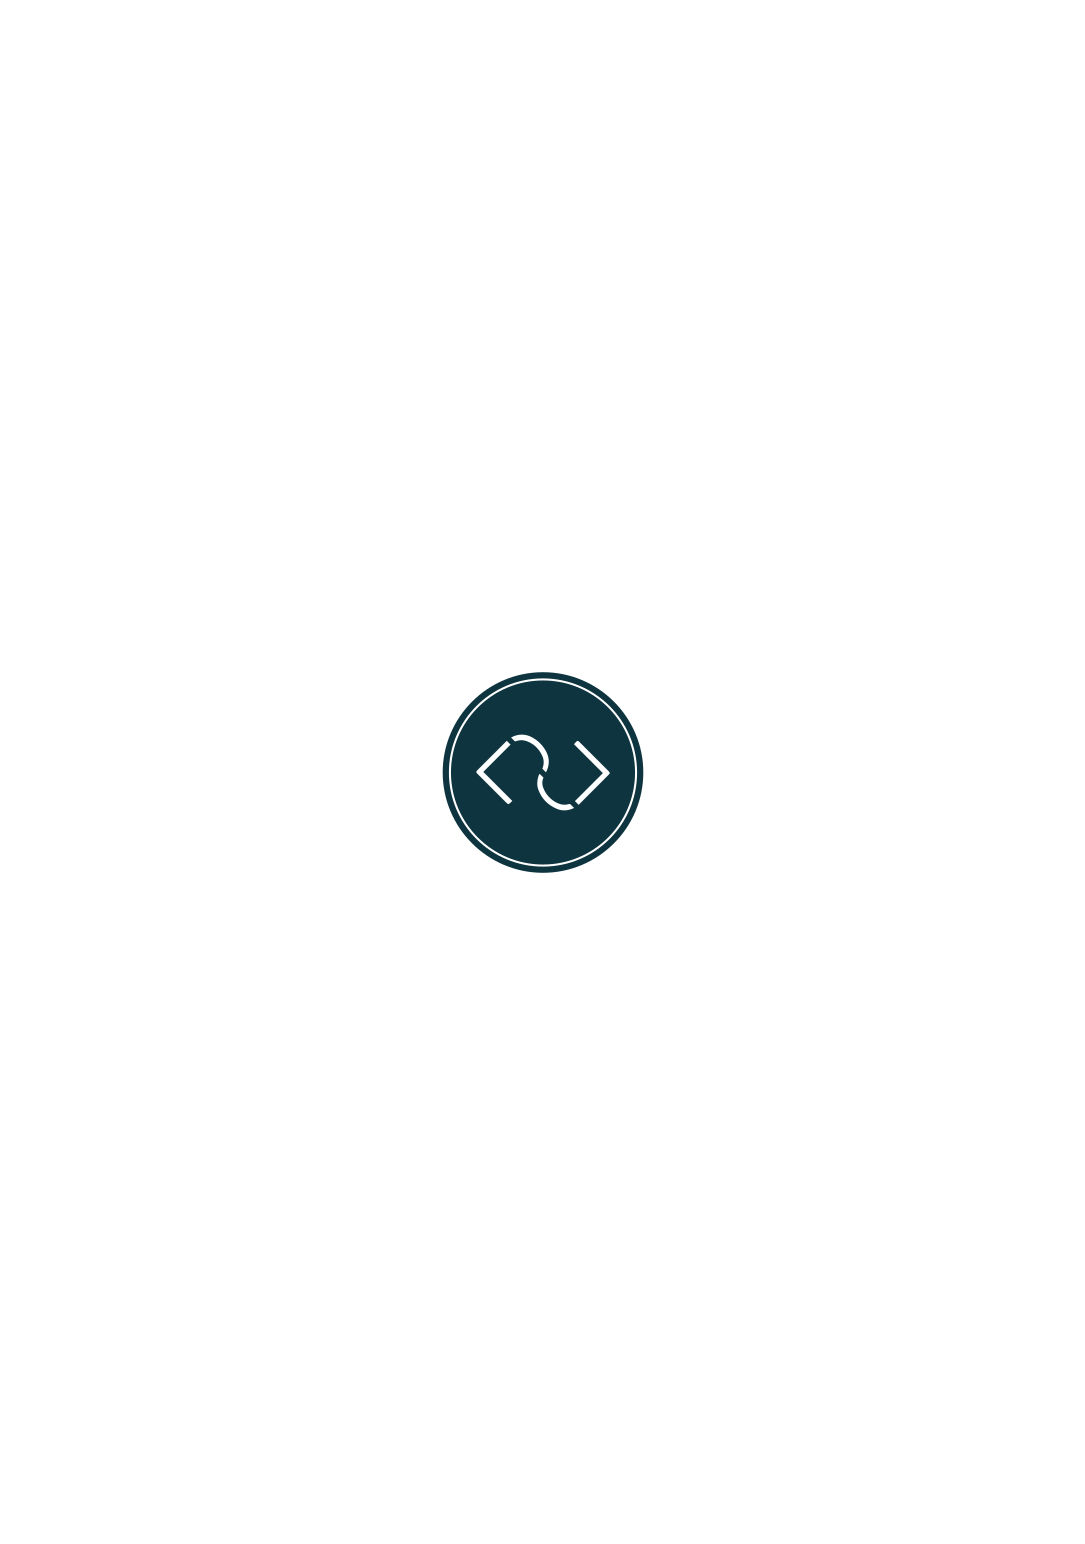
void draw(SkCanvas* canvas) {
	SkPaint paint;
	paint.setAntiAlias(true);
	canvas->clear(0xffffffff);
	canvas->drawImageRect(SkImages::DeferredFromEncodedData(SkData::MakeFromFileName("img1.png")), SkRect::MakeXYWH(442, 672, 202, 201), SkSamplingOptions());
}
